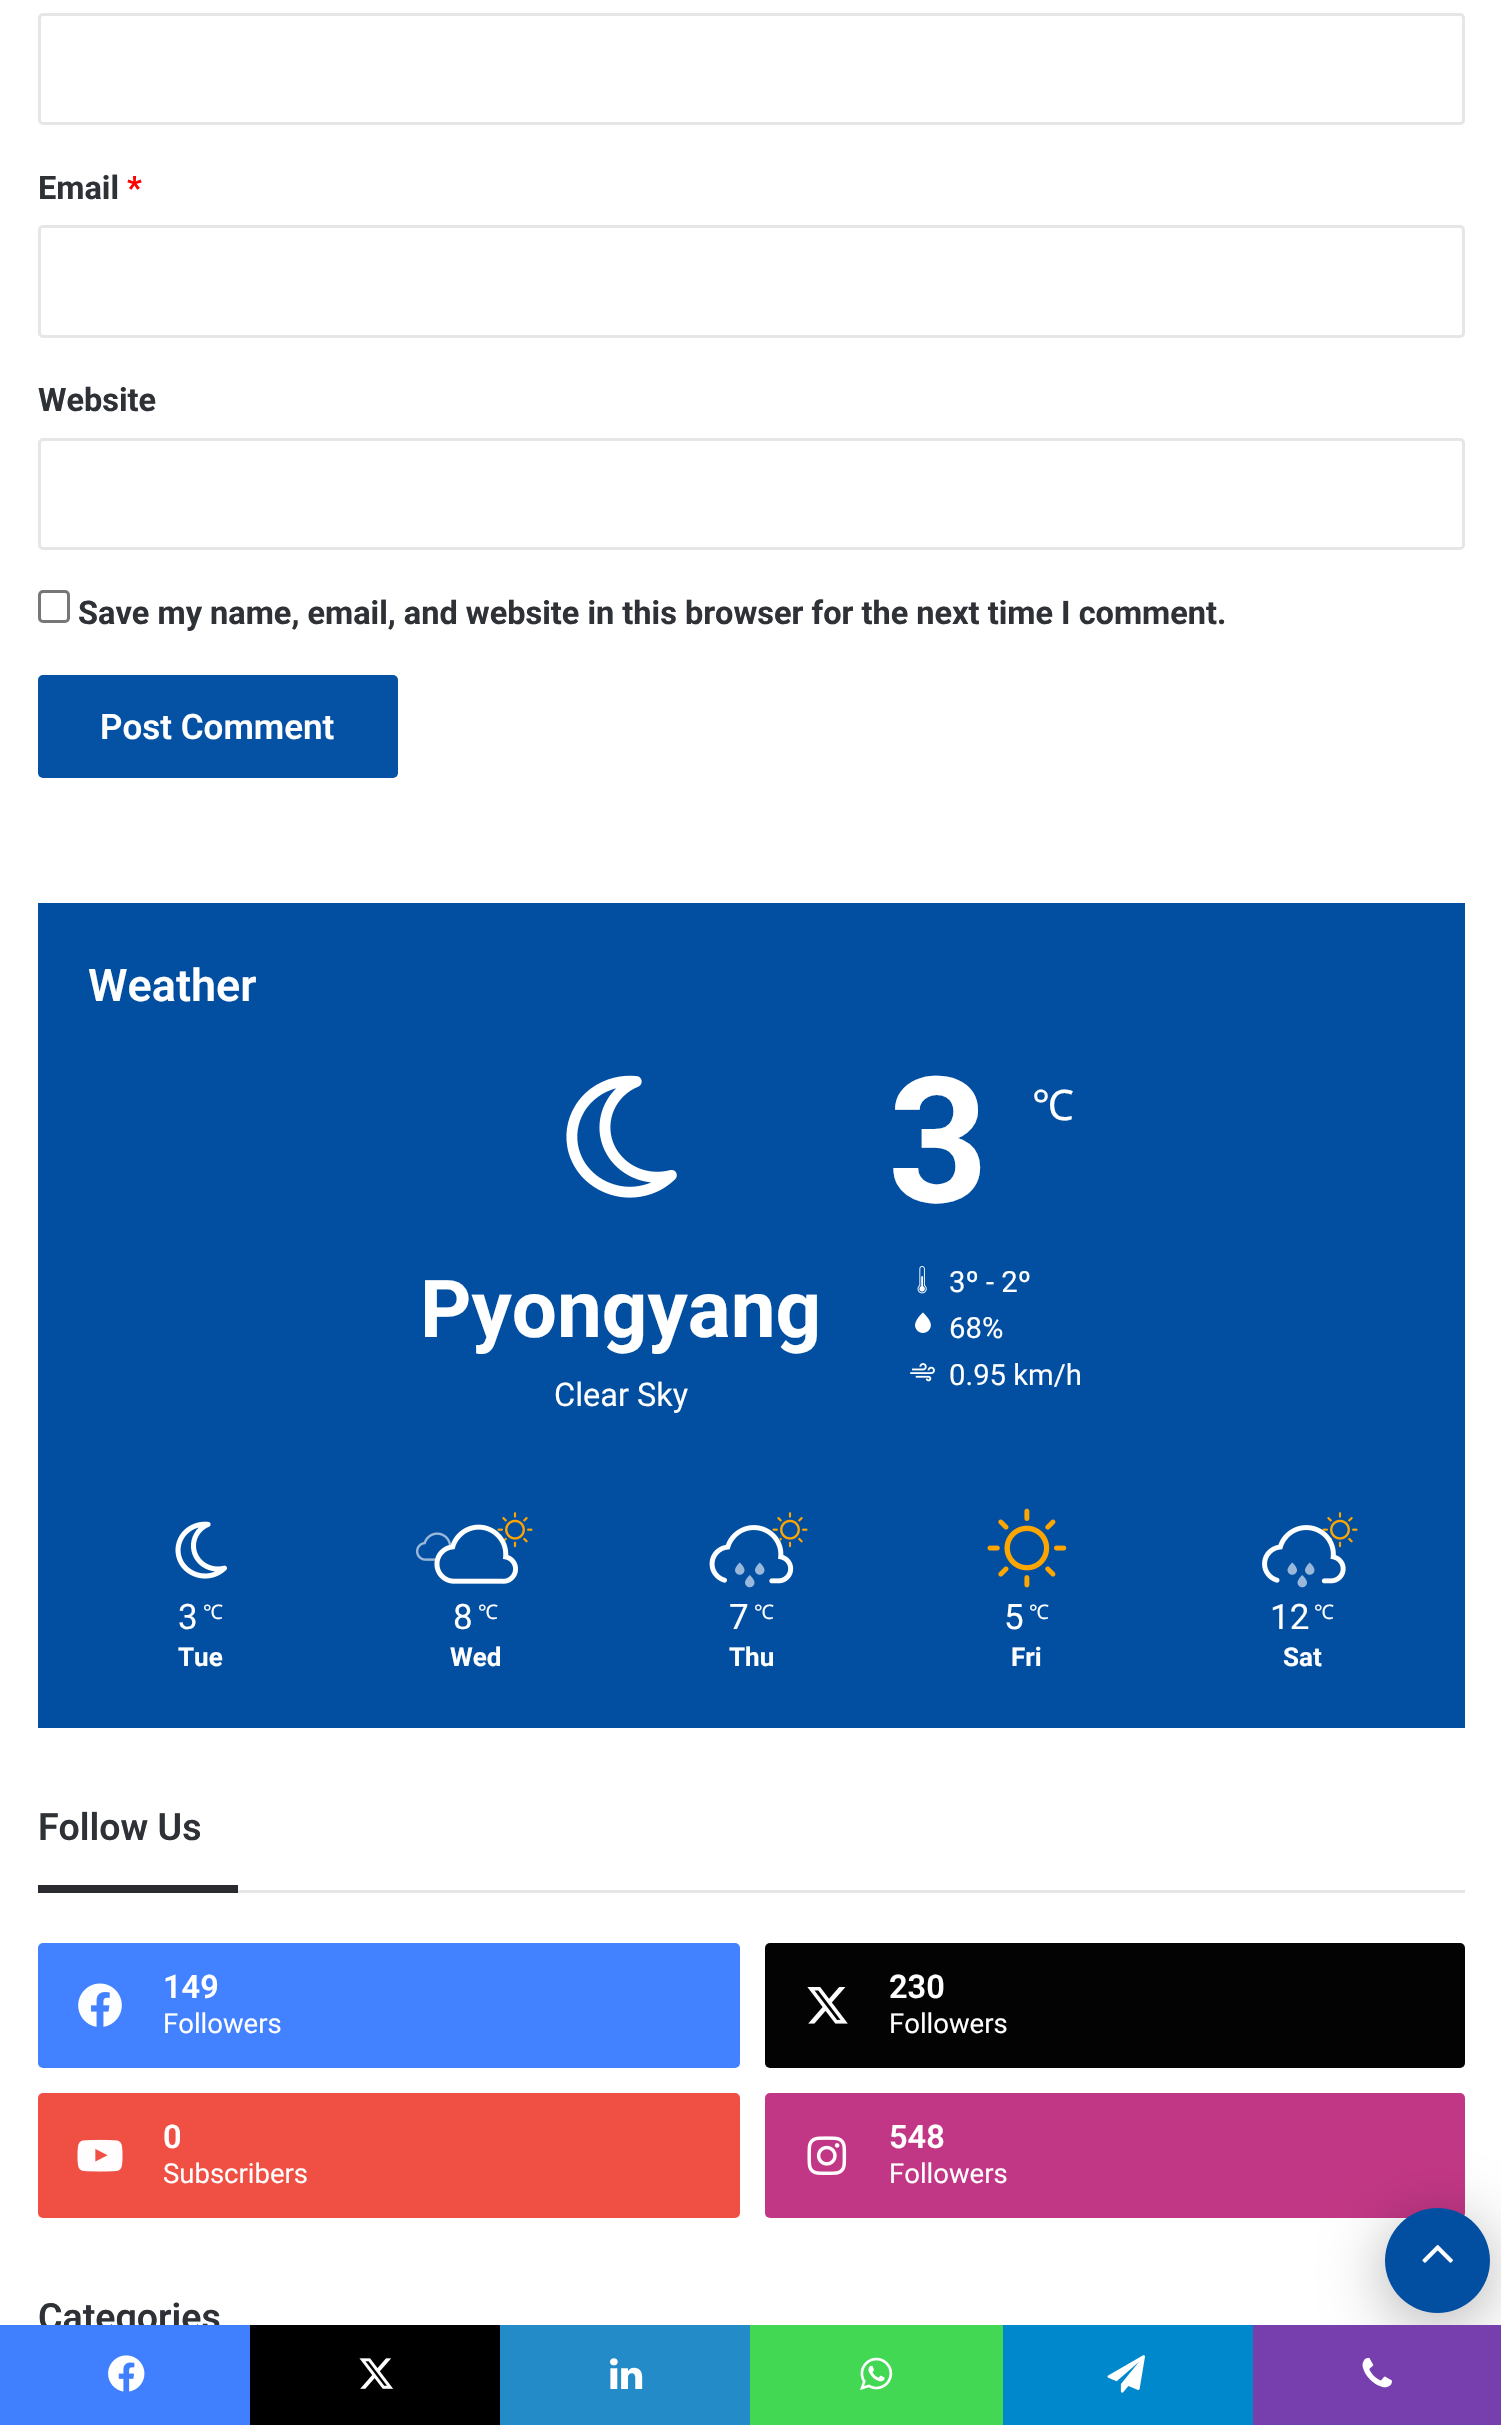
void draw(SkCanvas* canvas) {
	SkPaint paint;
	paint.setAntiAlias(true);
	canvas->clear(0xffffffff);
	paint.setStroke(true);
	paint.setStrokeWidth(3);
	paint.setColor(0xffe6e6e6);
	canvas->drawRoundRect(SkRect::MakeXYWH(39.5, 14.5, 1424, 109), 3.5, 3.5, paint);
	SkFont f1(fontMgr->matchFamilyStyle("Roboto", SkFontStyle::Bold()), 32.5);
	f1.setSubpixel(true);
	paint.setStroke(false);
	paint.setColor(0xff2e3136);
	canvas->drawString("Email", 38, 199, f1, paint);
	paint.setColor(0xffff0303);
	canvas->drawString("*", 127, 199, f1, paint);
	paint.setStroke(true);
	paint.setColor(0xffe6e6e6);
	canvas->drawRoundRect(SkRect::MakeXYWH(39.5, 226.5, 1424, 110), 3.5, 3.5, paint);
	paint.setStroke(false);
	paint.setColor(0xff2e3136);
	canvas->drawString("Website", 38, 411, f1, paint);
	paint.setStroke(true);
	paint.setColor(0xffe6e6e6);
	canvas->drawRoundRect(SkRect::MakeXYWH(39.5, 439.5, 1424, 109), 3.5, 3.5, paint);
	paint.setColor(0xff777777);
	canvas->drawRoundRect(SkRect::MakeXYWH(39.5, 591.5, 29, 30), 3.5, 3.5, paint);
	paint.setStroke(false);
	paint.setColor(0xff2e3136);
	canvas->drawString("Save my name, email, and website in this browser for the next time I comment.", 78, 624, f1, paint);
	paint.setColor(0xff0551a3);
	canvas->drawRoundRect(SkRect::MakeXYWH(38, 675, 360, 103), 5, 5, paint);
	SkFont f2(fontMgr->matchFamilyStyle("Roboto", SkFontStyle(600, SkFontStyle::kNormal_Width, SkFontStyle::kUpright_Slant)), 35);
	f2.setSubpixel(true);
	paint.setColor(0xffffffff);
	canvas->drawString("Post Comment", 100, 739, f2, paint);
	paint.setColor(0xff024fa2);
	canvas->drawRect(SkRect::MakeXYWH(38, 903, 1427, 825), paint);
	SkFont f3(fontMgr->matchFamilyStyle("Roboto", SkFontStyle(600, SkFontStyle::kNormal_Width, SkFontStyle::kUpright_Slant)), 45);
	f3.setSubpixel(true);
	paint.setColor(0xffffffff);
	canvas->drawString("Weather", 88, 1001, f3, paint);
	canvas->drawImageRect(SkImages::DeferredFromEncodedData(SkData::MakeFromFileName("img1.png")), SkRect::MakeXYWH(566, 1075, 111, 123), SkSamplingOptions());
	SkFont f4(fontMgr->matchFamilyStyle("Roboto", SkFontStyle::Bold()), 80);
	f4.setSubpixel(true);
	canvas->drawString("Pyongyang", 420, 1337, f4, paint);
	SkFont f5(fontMgr->matchFamilyStyle("Roboto", SkFontStyle::Normal()), 32.5);
	f5.setSubpixel(true);
	canvas->drawString("Clear Sky", 554, 1406, f5, paint);
	SkFont f6(fontMgr->matchFamilyStyle("Roboto", SkFontStyle::Bold()), 175);
	f6.setSubpixel(true);
	canvas->drawString("3", 888, 1202, f6, paint);
	SkFont f7(fontMgr->matchFamilyStyle("Noto Sans", SkFontStyle::Normal()), 42);
	f7.setSubpixel(true);
	canvas->drawString("℃", 1032, 1120, f7, paint);
	canvas->drawImageRect(SkImages::DeferredFromEncodedData(SkData::MakeFromFileName("img2.png")), SkRect::MakeXYWH(917, 1266, 10, 28), SkSamplingOptions());
	SkFont f8(fontMgr->matchFamilyStyle("Roboto", SkFontStyle::Normal()), 29.25);
	f8.setSubpixel(true);
	canvas->drawString("3º - 2º", 949, 1292, f8, paint);
	canvas->drawImageRect(SkImages::DeferredFromEncodedData(SkData::MakeFromFileName("img3.png")), SkRect::MakeXYWH(915, 1312, 16, 21), SkSamplingOptions());
	canvas->drawString("68%", 949, 1338, f8, paint);
	canvas->drawImageRect(SkImages::DeferredFromEncodedData(SkData::MakeFromFileName("img4.png")), SkRect::MakeXYWH(910, 1363, 25, 19), SkSamplingOptions());
	canvas->drawString("0.95 km/h", 949, 1385, f8, paint);
	canvas->drawImageRect(SkImages::DeferredFromEncodedData(SkData::MakeFromFileName("img5.png")), SkRect::MakeXYWH(175, 1521, 52, 58), SkSamplingOptions());
	SkFont f9(fontMgr->matchFamilyStyle("Roboto", SkFontStyle::Normal()), 35);
	f9.setSubpixel(true);
	canvas->drawString("3", 178, 1629, f9, paint);
	SkFont f10(fontMgr->matchFamilyStyle("Noto Sans", SkFontStyle::Normal()), 20);
	f10.setSubpixel(true);
	canvas->drawString("℃", 203, 1619, f10, paint);
	SkFont f11(fontMgr->matchFamilyStyle("Roboto", SkFontStyle::Bold()), 26);
	f11.setSubpixel(true);
	canvas->drawString("Tue", 178, 1666, f11, paint);
	canvas->drawImageRect(SkImages::DeferredFromEncodedData(SkData::MakeFromFileName("img6.png")), SkRect::MakeXYWH(497, 1512, 36, 36), SkSamplingOptions());
	canvas->drawImageRect(SkImages::DeferredFromEncodedData(SkData::MakeFromFileName("img7.png")), SkRect::MakeXYWH(416, 1532, 35, 29), SkSamplingOptions());
	canvas->drawImageRect(SkImages::DeferredFromEncodedData(SkData::MakeFromFileName("img9.png")), SkRect::MakeXYWH(434, 1539, 71, 22), SkSamplingOptions());
	canvas->drawImageRect(SkImages::DeferredFromEncodedData(SkData::MakeFromFileName("img8.png")), SkRect::MakeXYWH(434, 1524, 84, 60), SkSamplingOptions());
	canvas->drawString("8", 453, 1629, f9, paint);
	canvas->drawString("℃", 478, 1619, f10, paint);
	canvas->drawString("Wed", 450, 1666, f11, paint);
	canvas->drawImageRect(SkImages::DeferredFromEncodedData(SkData::MakeFromFileName("img6.png")), SkRect::MakeXYWH(772, 1512, 36, 36), SkSamplingOptions());
	paint.setColor(0xff024fa2);
	canvas->drawRect(SkRect::MakeXYWH(779, 1539, 1, 4), paint);
	canvas->drawImageRect(SkImages::DeferredFromEncodedData(SkData::MakeFromFileName("img10.png")), SkRect::MakeXYWH(709, 1525, 85, 59), SkSamplingOptions());
	canvas->drawImageRect(SkImages::DeferredFromEncodedData(SkData::MakeFromFileName("img11.png")), SkRect::MakeXYWH(735, 1562, 10, 13), SkSamplingOptions());
	canvas->drawImageRect(SkImages::DeferredFromEncodedData(SkData::MakeFromFileName("img11.png")), SkRect::MakeXYWH(755, 1562, 10, 13), SkSamplingOptions());
	canvas->drawImageRect(SkImages::DeferredFromEncodedData(SkData::MakeFromFileName("img12.png")), SkRect::MakeXYWH(745, 1575, 10, 13), SkSamplingOptions());
	paint.setColor(0xffffffff);
	canvas->drawString("7", 729, 1629, f9, paint);
	canvas->drawString("℃", 754, 1619, f10, paint);
	canvas->drawString("Thu", 729, 1666, f11, paint);
	canvas->drawImageRect(SkImages::DeferredFromEncodedData(SkData::MakeFromFileName("img13.png")), SkRect::MakeXYWH(987, 1508, 80, 80), SkSamplingOptions());
	canvas->drawString("5", 1004, 1629, f9, paint);
	canvas->drawString("℃", 1029, 1619, f10, paint);
	canvas->drawString("Fri", 1011, 1666, f11, paint);
	canvas->drawImageRect(SkImages::DeferredFromEncodedData(SkData::MakeFromFileName("img6.png")), SkRect::MakeXYWH(1322, 1512, 36, 36), SkSamplingOptions());
	paint.setColor(0xff024fa2);
	canvas->drawRect(SkRect::MakeXYWH(1327, 1539, 1, 4), paint);
	canvas->drawImageRect(SkImages::DeferredFromEncodedData(SkData::MakeFromFileName("img14.png")), SkRect::MakeXYWH(1262, 1525, 84, 59), SkSamplingOptions());
	canvas->drawImageRect(SkImages::DeferredFromEncodedData(SkData::MakeFromFileName("img15.png")), SkRect::MakeXYWH(1287, 1562, 10, 13), SkSamplingOptions());
	canvas->drawImageRect(SkImages::DeferredFromEncodedData(SkData::MakeFromFileName("img11.png")), SkRect::MakeXYWH(1305, 1562, 10, 13), SkSamplingOptions());
	canvas->drawImageRect(SkImages::DeferredFromEncodedData(SkData::MakeFromFileName("img16.png")), SkRect::MakeXYWH(1297, 1575, 10, 13), SkSamplingOptions());
	paint.setColor(0xffffffff);
	canvas->drawString("12", 1270, 1629, f9, paint);
	canvas->drawString("℃", 1314, 1619, f10, paint);
	canvas->drawString("Sat", 1283, 1666, f11, paint);
	paint.setColor(0xffe6e6e6);
	canvas->drawRect(SkRect::MakeXYWH(238, 1890, 1227, 3), paint);
	SkFont f12(fontMgr->matchFamilyStyle("Roboto", SkFontStyle(600, SkFontStyle::kNormal_Width, SkFontStyle::kUpright_Slant)), 37.5);
	f12.setSubpixel(true);
	paint.setColor(0xff2e3136);
	canvas->drawString("Follow Us", 38, 1840, f12, paint);
	paint.setColor(0xff292b2f);
	canvas->drawRect(SkRect::MakeXYWH(38, 1885, 200, 8), paint);
	paint.setColor(0xff4281ff);
	canvas->drawRoundRect(SkRect::MakeXYWH(38, 1943, 702, 125), 5, 5, paint);
	canvas->drawImageRect(SkImages::DeferredFromEncodedData(SkData::MakeFromFileName("img17.png")), SkRect::MakeXYWH(78, 1983, 44, 44), SkSamplingOptions());
	SkFont f13(fontMgr->matchFamilyStyle("Roboto", SkFontStyle(600, SkFontStyle::kNormal_Width, SkFontStyle::kUpright_Slant)), 32.5);
	f13.setSubpixel(true);
	paint.setColor(0xffffffff);
	canvas->drawString("149", 163, 1998, f13, paint);
	SkFont f14(fontMgr->matchFamilyStyle("Roboto", SkFontStyle::Normal()), 27.5);
	f14.setSubpixel(true);
	canvas->drawString("Followers", 163, 2033, f14, paint);
	paint.setColor(0xff030303);
	canvas->drawRoundRect(SkRect::MakeXYWH(765, 1943, 700, 125), 5, 5, paint);
	canvas->drawImageRect(SkImages::DeferredFromEncodedData(SkData::MakeFromFileName("img18.png")), SkRect::MakeXYWH(807, 1987, 41, 37), SkSamplingOptions());
	paint.setColor(0xffffffff);
	canvas->drawString("230", 889, 1998, f13, paint);
	canvas->drawString("Followers", 889, 2033, f14, paint);
	paint.setColor(0xffef5043);
	canvas->drawRoundRect(SkRect::MakeXYWH(38, 2093, 702, 125), 5, 5, paint);
	canvas->drawImageRect(SkImages::DeferredFromEncodedData(SkData::MakeFromFileName("img19.png")), SkRect::MakeXYWH(77, 2139, 46, 33), SkSamplingOptions());
	paint.setColor(0xffffffff);
	canvas->drawString("0", 163, 2148, f13, paint);
	canvas->drawString("Subscribers", 163, 2183, f14, paint);
	paint.setColor(0xffc23785);
	canvas->drawRoundRect(SkRect::MakeXYWH(765, 2093, 700, 125), 5, 5, paint);
	canvas->drawImageRect(SkImages::DeferredFromEncodedData(SkData::MakeFromFileName("img20.png")), SkRect::MakeXYWH(807, 2136, 40, 39), SkSamplingOptions());
	paint.setColor(0xffffffff);
	canvas->drawString("548", 889, 2148, f13, paint);
	canvas->drawString("Followers", 889, 2183, f14, paint);
	paint.setColor(0xff2e3136);
	canvas->drawString("Categories", 38, 2330, f12, paint);
	paint.setColor(0x4d000000);
	paint.setMaskFilter(SkMaskFilter::MakeBlur(kNormal_SkBlurStyle, 31));
	canvas->drawRoundRect(SkRect::MakeXYWH(1385, 2220, 105, 105), 52.5, 52.5, paint);
	paint.setMaskFilter(nullptr);
	paint.setColor(0xff024fa2);
	canvas->drawCircle(1437.5, 2260.5, 52.5, paint);
	canvas->drawImageRect(SkImages::DeferredFromEncodedData(SkData::MakeFromFileName("img21.png")), SkRect::MakeXYWH(1422, 2245, 31, 18), SkSamplingOptions());
	paint.setColor(0xff4080ff);
	canvas->drawRect(SkRect::MakeXYWH(0, 2325, 250, 100), paint);
	canvas->drawImageRect(SkImages::DeferredFromEncodedData(SkData::MakeFromFileName("img22.png")), SkRect::MakeXYWH(108, 2355, 37, 37), SkSamplingOptions());
	paint.setColor(0xff000000);
	canvas->drawRect(SkRect::MakeXYWH(250, 2325, 250, 100), paint);
	canvas->drawImageRect(SkImages::DeferredFromEncodedData(SkData::MakeFromFileName("img23.png")), SkRect::MakeXYWH(359, 2358, 34, 31), SkSamplingOptions());
	paint.setColor(0xff238cc8);
	canvas->drawRect(SkRect::MakeXYWH(500, 2325, 250, 100), paint);
	canvas->drawImageRect(SkImages::DeferredFromEncodedData(SkData::MakeFromFileName("img24.png")), SkRect::MakeXYWH(610, 2358, 33, 31), SkSamplingOptions());
	paint.setColor(0xff43d854);
	canvas->drawRect(SkRect::MakeXYWH(750, 2325, 253, 100), paint);
	canvas->drawImageRect(SkImages::DeferredFromEncodedData(SkData::MakeFromFileName("img25.png")), SkRect::MakeXYWH(860, 2357, 33, 33), SkSamplingOptions());
	paint.setColor(0xff0088cc);
	canvas->drawRect(SkRect::MakeXYWH(1003, 2325, 250, 100), paint);
	canvas->drawImageRect(SkImages::DeferredFromEncodedData(SkData::MakeFromFileName("img26.png")), SkRect::MakeXYWH(1107, 2355, 38, 38), SkSamplingOptions());
	paint.setColor(0xff773ead);
	canvas->drawRect(SkRect::MakeXYWH(1253, 2325, 248, 100), paint);
	canvas->drawImageRect(SkImages::DeferredFromEncodedData(SkData::MakeFromFileName("img27.png")), SkRect::MakeXYWH(1362, 2357, 30, 31), SkSamplingOptions());
}
